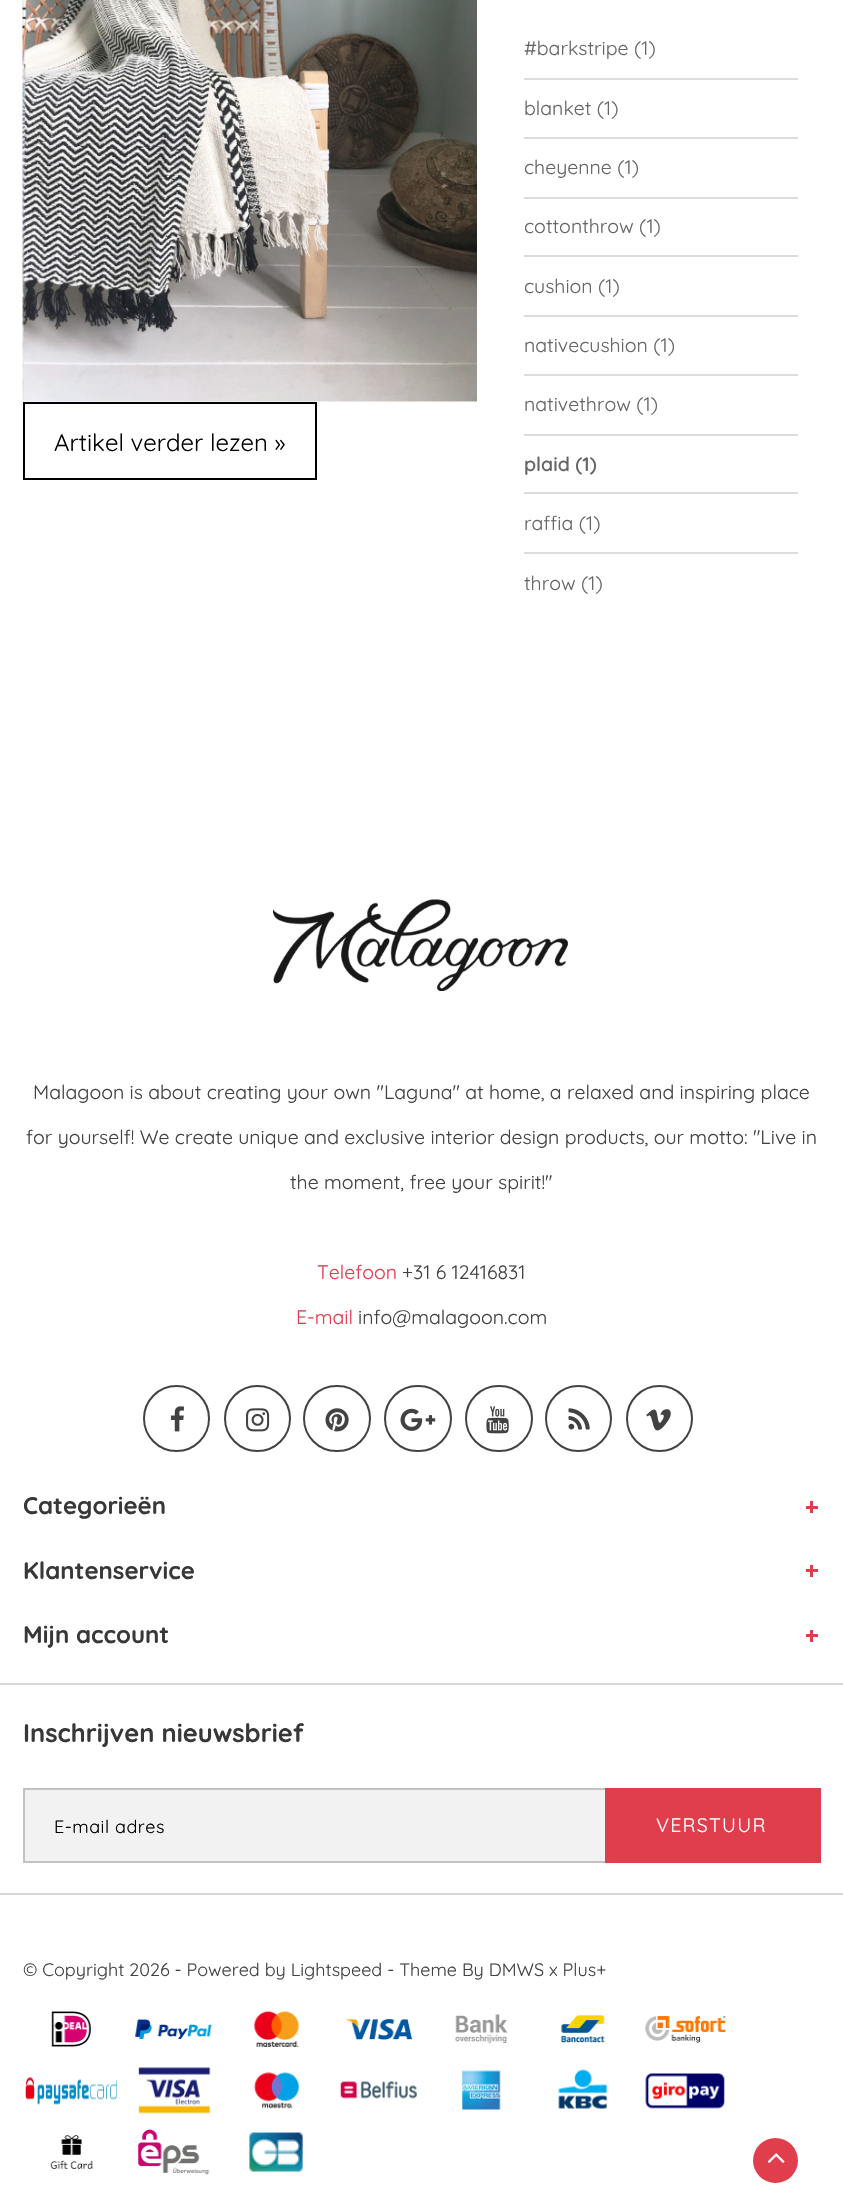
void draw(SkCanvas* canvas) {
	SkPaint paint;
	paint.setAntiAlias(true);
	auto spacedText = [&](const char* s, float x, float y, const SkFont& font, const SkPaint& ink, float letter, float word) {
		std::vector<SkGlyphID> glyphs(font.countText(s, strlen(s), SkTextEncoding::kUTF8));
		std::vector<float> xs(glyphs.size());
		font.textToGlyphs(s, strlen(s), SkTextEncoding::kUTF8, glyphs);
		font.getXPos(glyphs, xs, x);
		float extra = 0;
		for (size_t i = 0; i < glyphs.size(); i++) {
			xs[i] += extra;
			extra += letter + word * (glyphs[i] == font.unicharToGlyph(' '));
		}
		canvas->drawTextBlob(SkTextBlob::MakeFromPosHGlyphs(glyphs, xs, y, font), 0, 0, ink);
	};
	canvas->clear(0xffffffff);
	canvas->drawImageRect(SkImages::DeferredFromEncodedData(SkData::MakeFromFileName("img1.png")), SkRect::MakeXYWH(22, 0, 455, 402), SkSamplingOptions());
	paint.setStroke(true);
	paint.setStrokeWidth(2);
	paint.setColor(0xff000000);
	canvas->drawRect(SkRect::MakeXYWH(24, 403, 292, 76), paint);
	SkFont f1(fontMgr->matchFamilyStyle("Quicksand", SkFontStyle::Normal()), 24);
	f1.setSubpixel(true);
	paint.setStroke(false);
	canvas->drawString("Artikel verder lezen »", 54, 451, f1, paint);
	paint.setColor(0xffdcdcdc);
	canvas->drawRect(SkRect::MakeXYWH(524, 78, 274, 2), paint);
	SkFont f2(fontMgr->matchFamilyStyle("Quicksand", SkFontStyle::Normal()), 19.5);
	f2.setSubpixel(true);
	paint.setColor(0xff666666);
	canvas->drawString("#barkstripe (1)", 524, 55, f2, paint);
	paint.setColor(0xffdcdcdc);
	canvas->drawRect(SkRect::MakeXYWH(524, 137, 274, 2), paint);
	paint.setColor(0xff666666);
	canvas->drawString("blanket (1)", 524, 115, f2, paint);
	paint.setColor(0xffdcdcdc);
	canvas->drawRect(SkRect::MakeXYWH(524, 197, 274, 2), paint);
	paint.setColor(0xff666666);
	canvas->drawString("cheyenne (1)", 524, 174, f2, paint);
	paint.setColor(0xffdcdcdc);
	canvas->drawRect(SkRect::MakeXYWH(524, 255, 274, 2), paint);
	paint.setColor(0xff666666);
	canvas->drawString("cottonthrow (1)", 524, 233, f2, paint);
	paint.setColor(0xffdcdcdc);
	canvas->drawRect(SkRect::MakeXYWH(524, 315, 274, 2), paint);
	paint.setColor(0xff666666);
	canvas->drawString("cushion (1)", 524, 293, f2, paint);
	paint.setColor(0xffdcdcdc);
	canvas->drawRect(SkRect::MakeXYWH(524, 374, 274, 2), paint);
	paint.setColor(0xff666666);
	canvas->drawString("nativecushion (1)", 524, 352, f2, paint);
	paint.setColor(0xffdcdcdc);
	canvas->drawRect(SkRect::MakeXYWH(524, 434, 274, 2), paint);
	paint.setColor(0xff666666);
	canvas->drawString("nativethrow (1)", 524, 411, f2, paint);
	paint.setColor(0xffdcdcdc);
	canvas->drawRect(SkRect::MakeXYWH(524, 492, 274, 2), paint);
	SkFont f3(fontMgr->matchFamilyStyle("Quicksand", SkFontStyle(600, SkFontStyle::kNormal_Width, SkFontStyle::kUpright_Slant)), 19.5);
	f3.setSubpixel(true);
	paint.setColor(0xff666666);
	canvas->drawString("plaid (1)", 524, 471, f3, paint);
	paint.setColor(0xffdcdcdc);
	canvas->drawRect(SkRect::MakeXYWH(524, 552, 274, 2), paint);
	paint.setColor(0xff666666);
	canvas->drawString("raffia (1)", 524, 530, f2, paint);
	canvas->drawString("throw (1)", 524, 590, f2, paint);
	canvas->drawImageRect(SkImages::DeferredFromEncodedData(SkData::MakeFromFileName("img2.png")), SkRect::MakeXYWH(273, 899, 295, 92), SkSamplingOptions());
	paint.setColor(0xff424242);
	canvas->drawString("Malagoon is about creating your own \"Laguna\" at home, a relaxed and inspiring place", 33, 1099, f2, paint);
	canvas->drawString("for yourself! We create unique and exclusive interior design products, our motto: \"Live in", 26, 1144, f2, paint);
	canvas->drawString("the moment, free your spirit!\"", 290, 1189, f2, paint);
	paint.setColor(0xffe03e4c);
	canvas->drawString("Telefoon", 317, 1279, f2, paint);
	paint.setColor(0xff424242);
	canvas->drawString("+31 6 12416831", 402, 1279, f2, paint);
	paint.setColor(0xffe03e4c);
	canvas->drawString("E-mail", 296, 1324, f2, paint);
	paint.setColor(0xff424242);
	canvas->drawString("info@malagoon.com", 358, 1324, f2, paint);
	paint.setStroke(true);
	canvas->drawCircle(176.5, 1418.5, 32.5, paint);
	canvas->drawImageRect(SkImages::DeferredFromEncodedData(SkData::MakeFromFileName("img3.png")), SkRect::MakeXYWH(170, 1406, 14, 26), SkSamplingOptions());
	canvas->drawCircle(257.5, 1418.5, 32.5, paint);
	canvas->drawImageRect(SkImages::DeferredFromEncodedData(SkData::MakeFromFileName("img4.png")), SkRect::MakeXYWH(246, 1408, 24, 24), SkSamplingOptions());
	canvas->drawRoundRect(SkRect::MakeXYWH(304, 1386, 66, 65), 32.5, 32.5, paint);
	canvas->drawImageRect(SkImages::DeferredFromEncodedData(SkData::MakeFromFileName("img5.png")), SkRect::MakeXYWH(325, 1408, 24, 24), SkSamplingOptions());
	canvas->drawRoundRect(SkRect::MakeXYWH(385, 1386, 66, 65), 32.5, 32.5, paint);
	canvas->drawImageRect(SkImages::DeferredFromEncodedData(SkData::MakeFromFileName("img6.png")), SkRect::MakeXYWH(400, 1408, 36, 23), SkSamplingOptions());
	canvas->drawRoundRect(SkRect::MakeXYWH(466, 1386, 66, 65), 32.5, 32.5, paint);
	canvas->drawImageRect(SkImages::DeferredFromEncodedData(SkData::MakeFromFileName("img7.png")), SkRect::MakeXYWH(486, 1406, 23, 28), SkSamplingOptions());
	canvas->drawCircle(578.5, 1418.5, 32.5, paint);
	canvas->drawImageRect(SkImages::DeferredFromEncodedData(SkData::MakeFromFileName("img8.png")), SkRect::MakeXYWH(568, 1408, 22, 22), SkSamplingOptions());
	canvas->drawCircle(659.5, 1418.5, 32.5, paint);
	canvas->drawImageRect(SkImages::DeferredFromEncodedData(SkData::MakeFromFileName("img9.png")), SkRect::MakeXYWH(646, 1409, 25, 22), SkSamplingOptions());
	SkFont f4(fontMgr->matchFamilyStyle("Quicksand", SkFontStyle::Bold()), 24);
	f4.setSubpixel(true);
	paint.setStroke(false);
	paint.setColor(0xff383838);
	canvas->drawString("Categorieën", 23, 1514, f4, paint);
	paint.setColor(0xffe03e4c);
	canvas->drawRect(SkRect::MakeXYWH(806, 1506, 12, 3), paint);
	canvas->drawRect(SkRect::MakeXYWH(810, 1501, 3, 12), paint);
	paint.setColor(0xff383838);
	canvas->drawString("Klantenservice", 23, 1579, f4, paint);
	paint.setColor(0xffe03e4c);
	canvas->drawRect(SkRect::MakeXYWH(806, 1569, 12, 3), paint);
	canvas->drawRect(SkRect::MakeXYWH(810, 1565, 3, 12), paint);
	paint.setColor(0xff383838);
	canvas->drawString("Mijn account", 23, 1643, f4, paint);
	paint.setColor(0xffe03e4c);
	canvas->drawRect(SkRect::MakeXYWH(806, 1634, 12, 3), paint);
	canvas->drawRect(SkRect::MakeXYWH(810, 1630, 3, 12), paint);
	paint.setColor(0xffd6d6d6);
	canvas->drawRect(SkRect::MakeXYWH(0, 1683, 843, 2), paint);
	SkFont f5(fontMgr->matchFamilyStyle("Quicksand", SkFontStyle::Bold()), 25.5);
	f5.setSubpixel(true);
	paint.setColor(0xff383838);
	canvas->drawString("Inschrijven nieuwsbrief", 23, 1742, f5, paint);
	paint.setColor(0xfff2f2f2);
	canvas->drawRect(SkRect::MakeXYWH(25, 1790, 580, 71), paint);
	paint.setStroke(true);
	paint.setColor(0xffc2c2c2);
	canvas->drawRect(SkRect::MakeXYWH(24, 1789, 796, 73), paint);
	SkFont f6(fontMgr->matchFamilyStyle("Quicksand", SkFontStyle::Normal()), 18);
	f6.setSubpixel(true);
	paint.setStroke(false);
	paint.setColor(0xff000000);
	spacedText("E-mail adres", 54, 1833, f6, paint, 0.5, 0);
	paint.setColor(0xffe03e4c);
	canvas->drawRect(SkRect::MakeXYWH(605, 1788, 216, 75), paint);
	paint.setColor(0xffffffff);
	spacedText("VERSTUUR", 656, 1832, f2, paint, 1.25, 0);
	paint.setColor(0xffd6d6d6);
	canvas->drawRect(SkRect::MakeXYWH(0, 1893, 843, 2), paint);
	paint.setColor(0xff424242);
	canvas->drawString("© Copyright 2026 - Powered by Lightspeed - Theme By DMWS x Plus+", 23, 1976, f6, paint);
	canvas->drawImageRect(SkImages::DeferredFromEncodedData(SkData::MakeFromFileName("img10.png")), SkRect::MakeXYWH(51, 2011, 40, 36), SkSamplingOptions());
	canvas->drawImageRect(SkImages::DeferredFromEncodedData(SkData::MakeFromFileName("img11.png")), SkRect::MakeXYWH(135, 2019, 77, 20), SkSamplingOptions());
	canvas->drawImageRect(SkImages::DeferredFromEncodedData(SkData::MakeFromFileName("img12.png")), SkRect::MakeXYWH(254, 2011, 46, 36), SkSamplingOptions());
	canvas->drawImageRect(SkImages::DeferredFromEncodedData(SkData::MakeFromFileName("img13.png")), SkRect::MakeXYWH(345, 2019, 67, 21), SkSamplingOptions());
	canvas->drawImageRect(SkImages::DeferredFromEncodedData(SkData::MakeFromFileName("img14.png")), SkRect::MakeXYWH(455, 2014, 53, 29), SkSamplingOptions());
	canvas->drawImageRect(SkImages::DeferredFromEncodedData(SkData::MakeFromFileName("img15.png")), SkRect::MakeXYWH(561, 2015, 44, 28), SkSamplingOptions());
	canvas->drawImageRect(SkImages::DeferredFromEncodedData(SkData::MakeFromFileName("img16.png")), SkRect::MakeXYWH(645, 2016, 81, 27), SkSamplingOptions());
	canvas->drawImageRect(SkImages::DeferredFromEncodedData(SkData::MakeFromFileName("img17.png")), SkRect::MakeXYWH(25, 2077, 92, 28), SkSamplingOptions());
	canvas->drawImageRect(SkImages::DeferredFromEncodedData(SkData::MakeFromFileName("img18.png")), SkRect::MakeXYWH(138, 2067, 73, 47), SkSamplingOptions());
	canvas->drawImageRect(SkImages::DeferredFromEncodedData(SkData::MakeFromFileName("img19.png")), SkRect::MakeXYWH(254, 2072, 46, 37), SkSamplingOptions());
	canvas->drawImageRect(SkImages::DeferredFromEncodedData(SkData::MakeFromFileName("img20.png")), SkRect::MakeXYWH(340, 2081, 77, 18), SkSamplingOptions());
	canvas->drawImageRect(SkImages::DeferredFromEncodedData(SkData::MakeFromFileName("img21.png")), SkRect::MakeXYWH(462, 2070, 39, 40), SkSamplingOptions());
	canvas->drawImageRect(SkImages::DeferredFromEncodedData(SkData::MakeFromFileName("img22.png")), SkRect::MakeXYWH(558, 2069, 50, 40), SkSamplingOptions());
	canvas->drawImageRect(SkImages::DeferredFromEncodedData(SkData::MakeFromFileName("img23.png")), SkRect::MakeXYWH(645, 2073, 80, 36), SkSamplingOptions());
	canvas->drawImageRect(SkImages::DeferredFromEncodedData(SkData::MakeFromFileName("img24.png")), SkRect::MakeXYWH(50, 2135, 60, 34), SkSamplingOptions());
	canvas->drawImageRect(SkImages::DeferredFromEncodedData(SkData::MakeFromFileName("img25.png")), SkRect::MakeXYWH(138, 2129, 72, 46), SkSamplingOptions());
	canvas->drawImageRect(SkImages::DeferredFromEncodedData(SkData::MakeFromFileName("img26.png")), SkRect::MakeXYWH(249, 2132, 54, 40), SkSamplingOptions());
	paint.setColor(0xffe03e4c);
	canvas->drawCircle(775.5, 2160.5, 22.5, paint);
	canvas->drawImageRect(SkImages::DeferredFromEncodedData(SkData::MakeFromFileName("img27.png")), SkRect::MakeXYWH(767, 2153, 18, 10), SkSamplingOptions());
}
